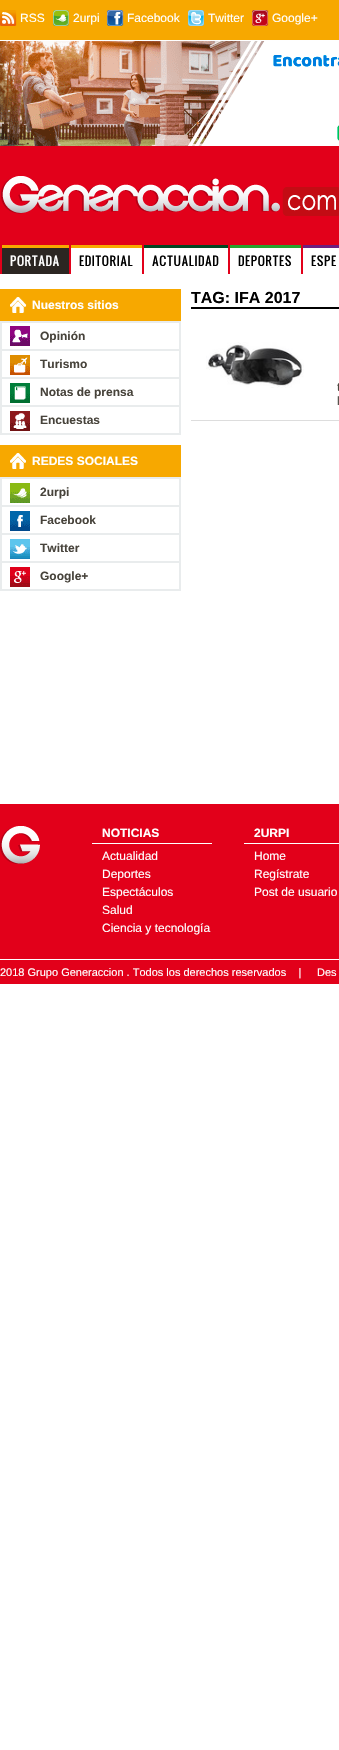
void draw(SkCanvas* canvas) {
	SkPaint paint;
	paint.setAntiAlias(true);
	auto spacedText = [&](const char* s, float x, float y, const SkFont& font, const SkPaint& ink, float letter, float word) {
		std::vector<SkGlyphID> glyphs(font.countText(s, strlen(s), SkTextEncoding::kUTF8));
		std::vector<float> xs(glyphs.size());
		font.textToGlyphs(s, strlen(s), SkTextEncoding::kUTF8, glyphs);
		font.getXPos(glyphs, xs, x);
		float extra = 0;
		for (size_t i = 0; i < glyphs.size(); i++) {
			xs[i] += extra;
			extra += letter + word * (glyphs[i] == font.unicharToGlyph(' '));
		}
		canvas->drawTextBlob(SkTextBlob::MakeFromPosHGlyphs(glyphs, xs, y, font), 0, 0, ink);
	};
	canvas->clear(0xffffffff);
	paint.setColor(0xfff7a800);
	canvas->drawRect(SkRect::MakeXYWH(0, 0, 339, 40), paint);
	canvas->drawImageRect(SkImages::DeferredFromEncodedData(SkData::MakeFromFileName("img1.png")), SkRect::MakeXYWH(0, 10, 17, 16), SkSamplingOptions());
	SkFont f1(fontMgr->matchFamilyStyle("Liberation Sans", SkFontStyle::Normal()), 12);
	f1.setSubpixel(true);
	paint.setColor(0xffffffff);
	canvas->drawString("RSS", 20, 22, f1, paint);
	canvas->drawImageRect(SkImages::DeferredFromEncodedData(SkData::MakeFromFileName("img2.png")), SkRect::MakeXYWH(53, 10, 16, 16), SkSamplingOptions());
	canvas->drawString("2urpi", 73, 22, f1, paint);
	canvas->drawImageRect(SkImages::DeferredFromEncodedData(SkData::MakeFromFileName("img3.png")), SkRect::MakeXYWH(107, 10, 17, 16), SkSamplingOptions());
	canvas->drawString("Facebook", 127, 22, f1, paint);
	canvas->drawImageRect(SkImages::DeferredFromEncodedData(SkData::MakeFromFileName("img4.png")), SkRect::MakeXYWH(188, 10, 16, 16), SkSamplingOptions());
	canvas->drawString("Twitter", 208, 22, f1, paint);
	canvas->drawImageRect(SkImages::DeferredFromEncodedData(SkData::MakeFromFileName("img5.png")), SkRect::MakeXYWH(252, 10, 17, 16), SkSamplingOptions());
	canvas->drawString("Google+", 272, 22, f1, paint);
	canvas->drawImageRect(SkImages::DeferredFromEncodedData(SkData::MakeFromFileName("img6.png")), SkRect::MakeXYWH(0, 41, 339, 105), SkSamplingOptions());
	paint.setColor(0xffe2001a);
	canvas->drawRect(SkRect::MakeXYWH(0, 146, 339, 128), paint);
	canvas->drawImageRect(SkImages::DeferredFromEncodedData(SkData::MakeFromFileName("img7.png")), SkRect::MakeXYWH(1, 176, 338, 40), SkSamplingOptions());
	paint.setColor(0xfff7a800);
	canvas->drawRect(SkRect::MakeXYWH(2, 245, 67, 3), paint);
	paint.setColor(0xff2c2622);
	canvas->drawRect(SkRect::MakeXYWH(2, 248, 67, 26), paint);
	SkFont f2(fontMgr->matchFamilyStyle("Oswald", SkFontStyle::Normal()), 12);
	f2.setSubpixel(true);
	paint.setColor(0xffffffff);
	spacedText("PORTADA", 10, 266, f2, paint, 0.5, 0);
	canvas->drawRect(SkRect::MakeXYWH(71, 248, 71, 26), paint);
	paint.setColor(0xfff7a800);
	canvas->drawRect(SkRect::MakeXYWH(71, 245, 71, 3), paint);
	paint.setColor(0xff000000);
	spacedText("EDITORIAL", 79, 266, f2, paint, 0.5, 0);
	paint.setColor(0xffffffff);
	canvas->drawRect(SkRect::MakeXYWH(144, 248, 84, 26), paint);
	paint.setColor(0xff004723);
	canvas->drawRect(SkRect::MakeXYWH(144, 245, 84, 3), paint);
	paint.setColor(0xff000000);
	spacedText("ACTUALIDAD", 152, 266, f2, paint, 0.5, 0);
	paint.setColor(0xffffffff);
	canvas->drawRect(SkRect::MakeXYWH(230, 248, 71, 26), paint);
	paint.setColor(0xff27a22d);
	canvas->drawRect(SkRect::MakeXYWH(230, 245, 71, 3), paint);
	paint.setColor(0xff000000);
	spacedText("DEPORTES", 238, 266, f2, paint, 0.5, 0);
	paint.setColor(0xffffffff);
	canvas->drawRect(SkRect::MakeXYWH(303, 248, 36, 26), paint);
	paint.setColor(0xff6d1f80);
	canvas->drawRect(SkRect::MakeXYWH(303, 245, 36, 3), paint);
	paint.setColor(0xff000000);
	spacedText("ESPE", 311, 266, f2, paint, 0.5, 0);
	paint.setColor(0xfff7a800);
	canvas->drawRect(SkRect::MakeXYWH(0, 289, 181, 32), paint);
	canvas->drawImageRect(SkImages::DeferredFromEncodedData(SkData::MakeFromFileName("img8.png")), SkRect::MakeXYWH(10, 297, 17, 16), SkSamplingOptions());
	SkFont f3(fontMgr->matchFamilyStyle("Liberation Sans", SkFontStyle::Bold()), 12);
	f3.setSubpixel(true);
	paint.setColor(0xffffffff);
	canvas->drawString("Nuestros sitios", 32, 309, f3, paint);
	paint.setColor(0xffe9eced);
	canvas->drawRect(SkRect::MakeXYWH(0, 321, 181, 2), paint);
	canvas->drawRect(SkRect::MakeXYWH(179, 321, 2, 114), paint);
	canvas->drawRect(SkRect::MakeXYWH(0, 321, 2, 114), paint);
	canvas->drawImageRect(SkImages::DeferredFromEncodedData(SkData::MakeFromFileName("img9.png")), SkRect::MakeXYWH(10, 326, 20, 20), SkSamplingOptions());
	canvas->drawRect(SkRect::MakeXYWH(2, 349, 177, 2), paint);
	paint.setColor(0xff47433b);
	canvas->drawString("Opinión", 40, 340, f3, paint);
	canvas->drawImageRect(SkImages::DeferredFromEncodedData(SkData::MakeFromFileName("img10.png")), SkRect::MakeXYWH(10, 355, 20, 20), SkSamplingOptions());
	paint.setColor(0xffe9eced);
	canvas->drawRect(SkRect::MakeXYWH(2, 377, 177, 2), paint);
	paint.setColor(0xff47433b);
	canvas->drawString("Turismo", 40, 368, f3, paint);
	canvas->drawImageRect(SkImages::DeferredFromEncodedData(SkData::MakeFromFileName("img11.png")), SkRect::MakeXYWH(10, 383, 20, 20), SkSamplingOptions());
	paint.setColor(0xffe9eced);
	canvas->drawRect(SkRect::MakeXYWH(2, 405, 177, 2), paint);
	paint.setColor(0xff47433b);
	canvas->drawString("Notas de prensa", 40, 396, f3, paint);
	canvas->drawImageRect(SkImages::DeferredFromEncodedData(SkData::MakeFromFileName("img12.png")), SkRect::MakeXYWH(10, 411, 20, 20), SkSamplingOptions());
	paint.setColor(0xffe9eced);
	canvas->drawRect(SkRect::MakeXYWH(2, 433, 177, 2), paint);
	paint.setColor(0xff47433b);
	canvas->drawString("Encuestas", 40, 424, f3, paint);
	paint.setColor(0xfff7a800);
	canvas->drawRect(SkRect::MakeXYWH(0, 445, 181, 32), paint);
	canvas->drawImageRect(SkImages::DeferredFromEncodedData(SkData::MakeFromFileName("img13.png")), SkRect::MakeXYWH(10, 453, 16, 16), SkSamplingOptions());
	paint.setColor(0xffffffff);
	canvas->drawString("REDES SOCIALES", 32, 465, f3, paint);
	paint.setColor(0xffe9eced);
	canvas->drawRect(SkRect::MakeXYWH(0, 477, 181, 2), paint);
	canvas->drawRect(SkRect::MakeXYWH(179, 477, 2, 114), paint);
	canvas->drawRect(SkRect::MakeXYWH(0, 477, 2, 114), paint);
	canvas->drawImageRect(SkImages::DeferredFromEncodedData(SkData::MakeFromFileName("img14.png")), SkRect::MakeXYWH(10, 483, 20, 20), SkSamplingOptions());
	canvas->drawRect(SkRect::MakeXYWH(2, 505, 177, 2), paint);
	paint.setColor(0xff47433b);
	canvas->drawString("2urpi", 40, 496, f3, paint);
	canvas->drawImageRect(SkImages::DeferredFromEncodedData(SkData::MakeFromFileName("img15.png")), SkRect::MakeXYWH(10, 511, 20, 20), SkSamplingOptions());
	paint.setColor(0xffe9eced);
	canvas->drawRect(SkRect::MakeXYWH(2, 533, 177, 2), paint);
	paint.setColor(0xff47433b);
	canvas->drawString("Facebook", 40, 524, f3, paint);
	canvas->drawImageRect(SkImages::DeferredFromEncodedData(SkData::MakeFromFileName("img16.png")), SkRect::MakeXYWH(10, 539, 20, 20), SkSamplingOptions());
	paint.setColor(0xffe9eced);
	canvas->drawRect(SkRect::MakeXYWH(2, 561, 177, 2), paint);
	paint.setColor(0xff47433b);
	canvas->drawString("Twitter", 40, 552, f3, paint);
	canvas->drawImageRect(SkImages::DeferredFromEncodedData(SkData::MakeFromFileName("img17.png")), SkRect::MakeXYWH(10, 567, 20, 20), SkSamplingOptions());
	paint.setColor(0xffe9eced);
	canvas->drawRect(SkRect::MakeXYWH(2, 589, 177, 2), paint);
	paint.setColor(0xff47433b);
	canvas->drawString("Google+", 40, 580, f3, paint);
	paint.setColor(0xff000000);
	canvas->drawRect(SkRect::MakeXYWH(191, 307, 148, 2), paint);
	SkFont f4(fontMgr->matchFamilyStyle("Liberation Sans", SkFontStyle::Bold()), 16);
	f4.setSubpixel(true);
	canvas->drawString("TAG: IFA 2017", 191, 303, f4, paint);
	paint.setColor(0xffdddddd);
	canvas->drawRect(SkRect::MakeXYWH(191, 420, 148, 1), paint);
	canvas->drawImageRect(SkImages::DeferredFromEncodedData(SkData::MakeFromFileName("img18.png")), SkRect::MakeXYWH(206, 342, 98, 46), SkSamplingOptions());
	paint.setColor(0xff47433b);
	canvas->drawString("t", 337, 391, f1, paint);
	canvas->drawString("l", 337, 405, f1, paint);
	paint.setColor(0xffe2001a);
	canvas->drawRect(SkRect::MakeXYWH(0, 804, 339, 180), paint);
	paint.setColor(0xffffffff);
	canvas->drawRect(SkRect::MakeXYWH(0, 959, 339, 1), paint);
	canvas->drawImageRect(SkImages::DeferredFromEncodedData(SkData::MakeFromFileName("img19.png")), SkRect::MakeXYWH(0, 826, 40, 38), SkSamplingOptions());
	canvas->drawRect(SkRect::MakeXYWH(92, 843, 120, 1), paint);
	canvas->drawString("NOTICIAS", 102, 837, f3, paint);
	canvas->drawString("Actualidad", 102, 860, f1, paint);
	canvas->drawString("Deportes", 102, 878, f1, paint);
	canvas->drawString("Espectáculos", 102, 896, f1, paint);
	canvas->drawString("Salud", 102, 914, f1, paint);
	canvas->drawString("Ciencia y tecnología", 102, 932, f1, paint);
	canvas->drawRect(SkRect::MakeXYWH(244, 843, 95, 1), paint);
	canvas->drawString("2URPI", 254, 837, f3, paint);
	canvas->drawString("Home", 254, 860, f1, paint);
	canvas->drawString("Regístrate", 254, 878, f1, paint);
	canvas->drawString("Post de usuario", 254, 896, f1, paint);
	SkFont f5(fontMgr->matchFamilyStyle("Liberation Sans", SkFontStyle::Normal()), 11);
	f5.setSubpixel(true);
	canvas->drawString("2018 Grupo Generaccion . Todos los derechos reservados    |", 0, 976, f5, paint);
	canvas->drawString("Des", 317, 976, f5, paint);
}
